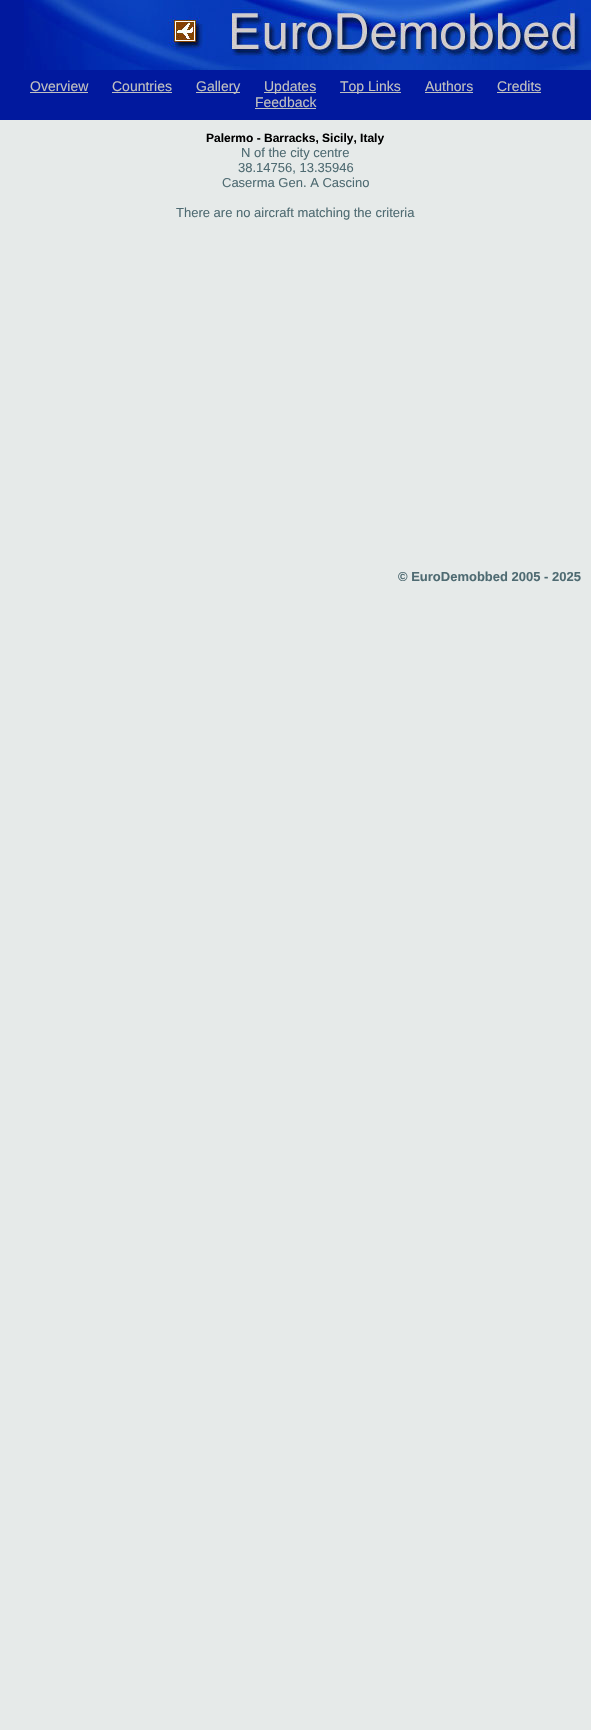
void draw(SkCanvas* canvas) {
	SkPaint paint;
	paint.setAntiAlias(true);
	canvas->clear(0xffe6eae9);
	paint.setColor(0xff01199e);
	canvas->drawRect(SkRect::MakeXYWH(0, 0, 591, 120), paint);
	canvas->drawImageRect(SkImages::DeferredFromEncodedData(SkData::MakeFromFileName("img1.png")), SkRect::MakeXYWH(24, 0, 567, 70), SkSamplingOptions());
	SkFont f1(fontMgr->matchFamilyStyle("Liberation Sans", SkFontStyle::Normal()), 14);
	f1.setSubpixel(true);
	paint.setColor(0xffc0c0c0);
	canvas->drawString("Overview", 30, 91, f1, paint);
	canvas->drawRect(SkRect::MakeXYWH(30, 92, 58, 1), paint);
	canvas->drawString("Countries", 112, 91, f1, paint);
	canvas->drawRect(SkRect::MakeXYWH(112, 92, 60, 1), paint);
	canvas->drawRect(SkRect::MakeXYWH(196, 92, 44, 1), paint);
	canvas->drawString("Gallery", 196, 91, f1, paint);
	canvas->drawRect(SkRect::MakeXYWH(264, 92, 52, 1), paint);
	canvas->drawString("Updates", 264, 91, f1, paint);
	canvas->drawRect(SkRect::MakeXYWH(340, 92, 61, 1), paint);
	canvas->drawString("Top Links", 340, 91, f1, paint);
	canvas->drawString("Authors", 425, 91, f1, paint);
	canvas->drawRect(SkRect::MakeXYWH(425, 92, 48, 1), paint);
	canvas->drawString("Credits", 497, 91, f1, paint);
	canvas->drawRect(SkRect::MakeXYWH(497, 92, 44, 1), paint);
	canvas->drawString("Feedback", 255, 107, f1, paint);
	canvas->drawRect(SkRect::MakeXYWH(255, 108, 61, 1), paint);
	SkFont f2(fontMgr->matchFamilyStyle("Liberation Sans", SkFontStyle::Bold()), 12);
	f2.setSubpixel(true);
	paint.setColor(0xff000000);
	canvas->drawString("Palermo - Barracks, Sicily, Italy", 206, 142, f2, paint);
	SkFont f3(fontMgr->matchFamilyStyle("Liberation Sans", SkFontStyle::Normal()), 13);
	f3.setSubpixel(true);
	paint.setColor(0xff4f6b72);
	canvas->drawString("N of the city centre", 241, 157, f3, paint);
	canvas->drawString("38.14756, 13.35946", 238, 172, f3, paint);
	canvas->drawString("Caserma Gen. A Cascino", 222, 187, f3, paint);
	canvas->drawString("There are no aircraft matching the criteria", 176, 217, f3, paint);
	SkFont f4(fontMgr->matchFamilyStyle("Liberation Sans", SkFontStyle::Bold()), 13);
	f4.setSubpixel(true);
	canvas->drawString("© EuroDemobbed 2005 - 2025", 398, 581, f4, paint);
}
